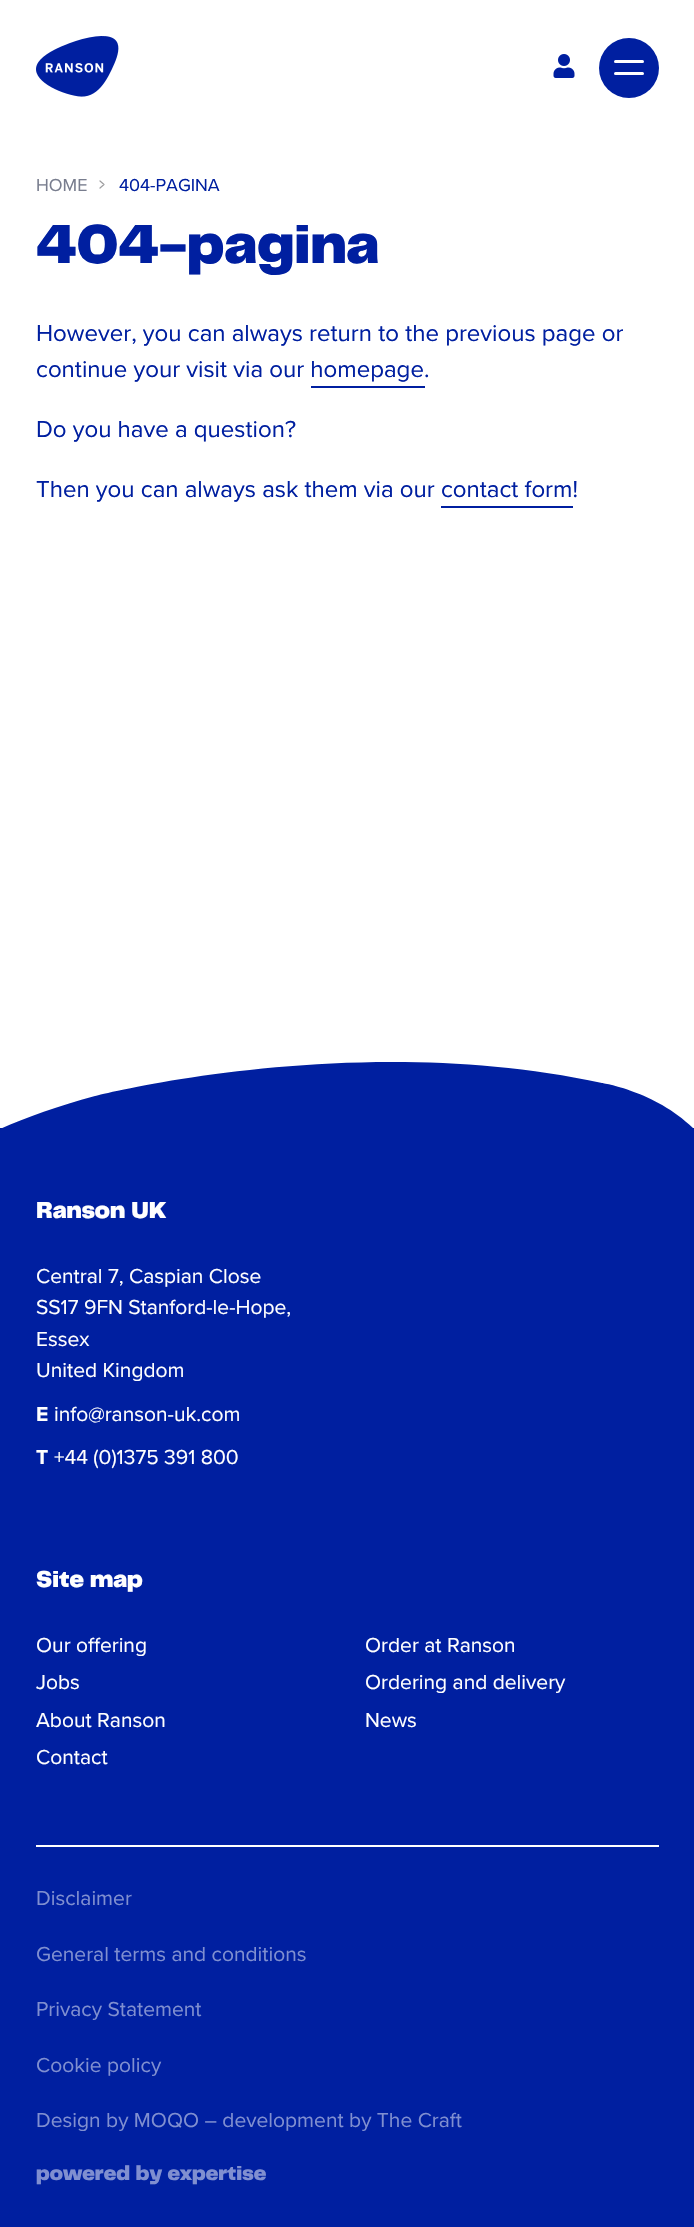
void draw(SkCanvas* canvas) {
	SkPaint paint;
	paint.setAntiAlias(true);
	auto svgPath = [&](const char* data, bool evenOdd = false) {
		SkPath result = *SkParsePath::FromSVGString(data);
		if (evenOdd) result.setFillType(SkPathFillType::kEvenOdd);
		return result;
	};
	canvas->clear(0xffffffff);
	canvas->drawImageRect(SkImages::DeferredFromEncodedData(SkData::MakeFromFileName("img1.png")), SkRect::MakeXYWH(36, 36, 83, 61), SkSamplingOptions());
	canvas->drawImageRect(SkImages::DeferredFromEncodedData(SkData::MakeFromFileName("img2.png")), SkRect::MakeXYWH(553, 54, 22, 24), SkSamplingOptions());
	paint.setColor(0xff001fa0);
	canvas->drawCircle(629, 68, 30, paint);
	paint.setColor(0xffffffff);
	canvas->drawRoundRect(SkRect::MakeXYWH(614, 60, 30, 3), 1.5, 1.5, paint);
	canvas->drawRoundRect(SkRect::MakeXYWH(614, 72, 30, 3), 1.5, 1.5, paint);
	SkFont f1(fontMgr->matchFamilyStyle("Proxima Nova", SkFontStyle::Normal()), 18);
	f1.setSubpixel(true);
	paint.setColor(0xff787d8e);
	canvas->drawString("HOME", 36, 191, f1, paint);
	paint.setStroke(true);
	paint.setStrokeWidth(1.2);
	paint.setStrokeCap(SkPaint::kRound_Cap);
	paint.setStrokeJoin(SkPaint::kRound_Join);
	paint.setColor(0xff9d9d9f);
	canvas->drawPath(svgPath("M100 181L104 184.5L100 188"), paint);
	paint.setStroke(false);
	paint.setColor(0xff001fa0);
	canvas->drawString("404-PAGINA", 119, 191, f1, paint);
	SkFont f2(fontMgr->matchFamilyStyle("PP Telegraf", SkFontStyle(900, SkFontStyle::kNormal_Width, SkFontStyle::kUpright_Slant)), 57);
	f2.setSubpixel(true);
	canvas->drawString("404-pagina", 36, 263, f2, paint);
	SkFont f3(fontMgr->matchFamilyStyle("Proxima Nova", SkFontStyle::Normal()), 24);
	f3.setSubpixel(true);
	canvas->drawString("However, you can always return to the previous page or", 36, 341, f3, paint);
	canvas->drawString("continue your visit via our homepage.", 36, 377, f3, paint);
	canvas->drawRect(SkRect::MakeXYWH(311, 386, 114, 2), paint);
	canvas->drawString("Do you have a question?", 36, 437, f3, paint);
	canvas->drawString("Then you can always ask them via our contact form!", 36, 497, f3, paint);
	canvas->drawRect(SkRect::MakeXYWH(441, 506, 132, 2), paint);
	canvas->drawRect(SkRect::MakeXYWH(0, 1128, 694, 1099), paint);
	canvas->drawPath(svgPath("M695 1129L693 1128C655 1091 602 1083 602 1083C354 1029 95 1096 95 1096C58 1106 27 1117 0 1129Z"), paint);
	SkFont f4(fontMgr->matchFamilyStyle("PP Telegraf", SkFontStyle(900, SkFontStyle::kNormal_Width, SkFontStyle::kUpright_Slant)), 24);
	f4.setSubpixel(true);
	paint.setColor(0xffffffff);
	canvas->drawString("Ranson UK", 36, 1218, f4, paint);
	SkFont f5(fontMgr->matchFamilyStyle("Proxima Nova", SkFontStyle::Normal()), 21);
	f5.setSubpixel(true);
	canvas->drawString("Central 7, Caspian Close", 36, 1283, f5, paint);
	canvas->drawString("SS17 9FN Stanford-le-Hope,", 36, 1314, f5, paint);
	canvas->drawString("Essex", 36, 1346, f5, paint);
	canvas->drawString("United Kingdom", 36, 1377, f5, paint);
	SkFont f6(fontMgr->matchFamilyStyle("Proxima Nova", SkFontStyle::Bold()), 21);
	f6.setSubpixel(true);
	canvas->drawString("E", 36, 1421, f6, paint);
	canvas->drawString("info@ranson-uk.com", 54, 1421, f5, paint);
	canvas->drawString("T", 36, 1464, f6, paint);
	canvas->drawString("+44 (0)1375 391 800", 54, 1464, f5, paint);
	canvas->drawString("Site map", 36, 1587, f4, paint);
	canvas->drawString("Our offering", 36, 1652, f5, paint);
	canvas->drawString("Order at Ranson", 365, 1652, f5, paint);
	canvas->drawString("Jobs", 36, 1689, f5, paint);
	canvas->drawString("Ordering and delivery", 365, 1689, f5, paint);
	canvas->drawString("About Ranson", 36, 1727, f5, paint);
	canvas->drawString("News", 365, 1727, f5, paint);
	canvas->drawString("Contact", 36, 1764, f5, paint);
	canvas->drawRect(SkRect::MakeXYWH(36, 1845, 623, 2), paint);
	paint.setColor(0xff808fd0);
	canvas->drawString("Disclaimer", 36, 1905, f5, paint);
	canvas->drawString("General terms and conditions", 36, 1961, f5, paint);
	canvas->drawString("Privacy Statement", 36, 2016, f5, paint);
	canvas->drawString("Cookie policy", 36, 2072, f5, paint);
	canvas->drawString("Design by MOQO – development by The Craft", 36, 2127, f5, paint);
	SkFont f7(fontMgr->matchFamilyStyle("PP Telegraf", SkFontStyle(900, SkFontStyle::kNormal_Width, SkFontStyle::kUpright_Slant)), 21);
	f7.setSubpixel(true);
	canvas->drawString("powered by expertise", 36, 2180, f7, paint);
}
